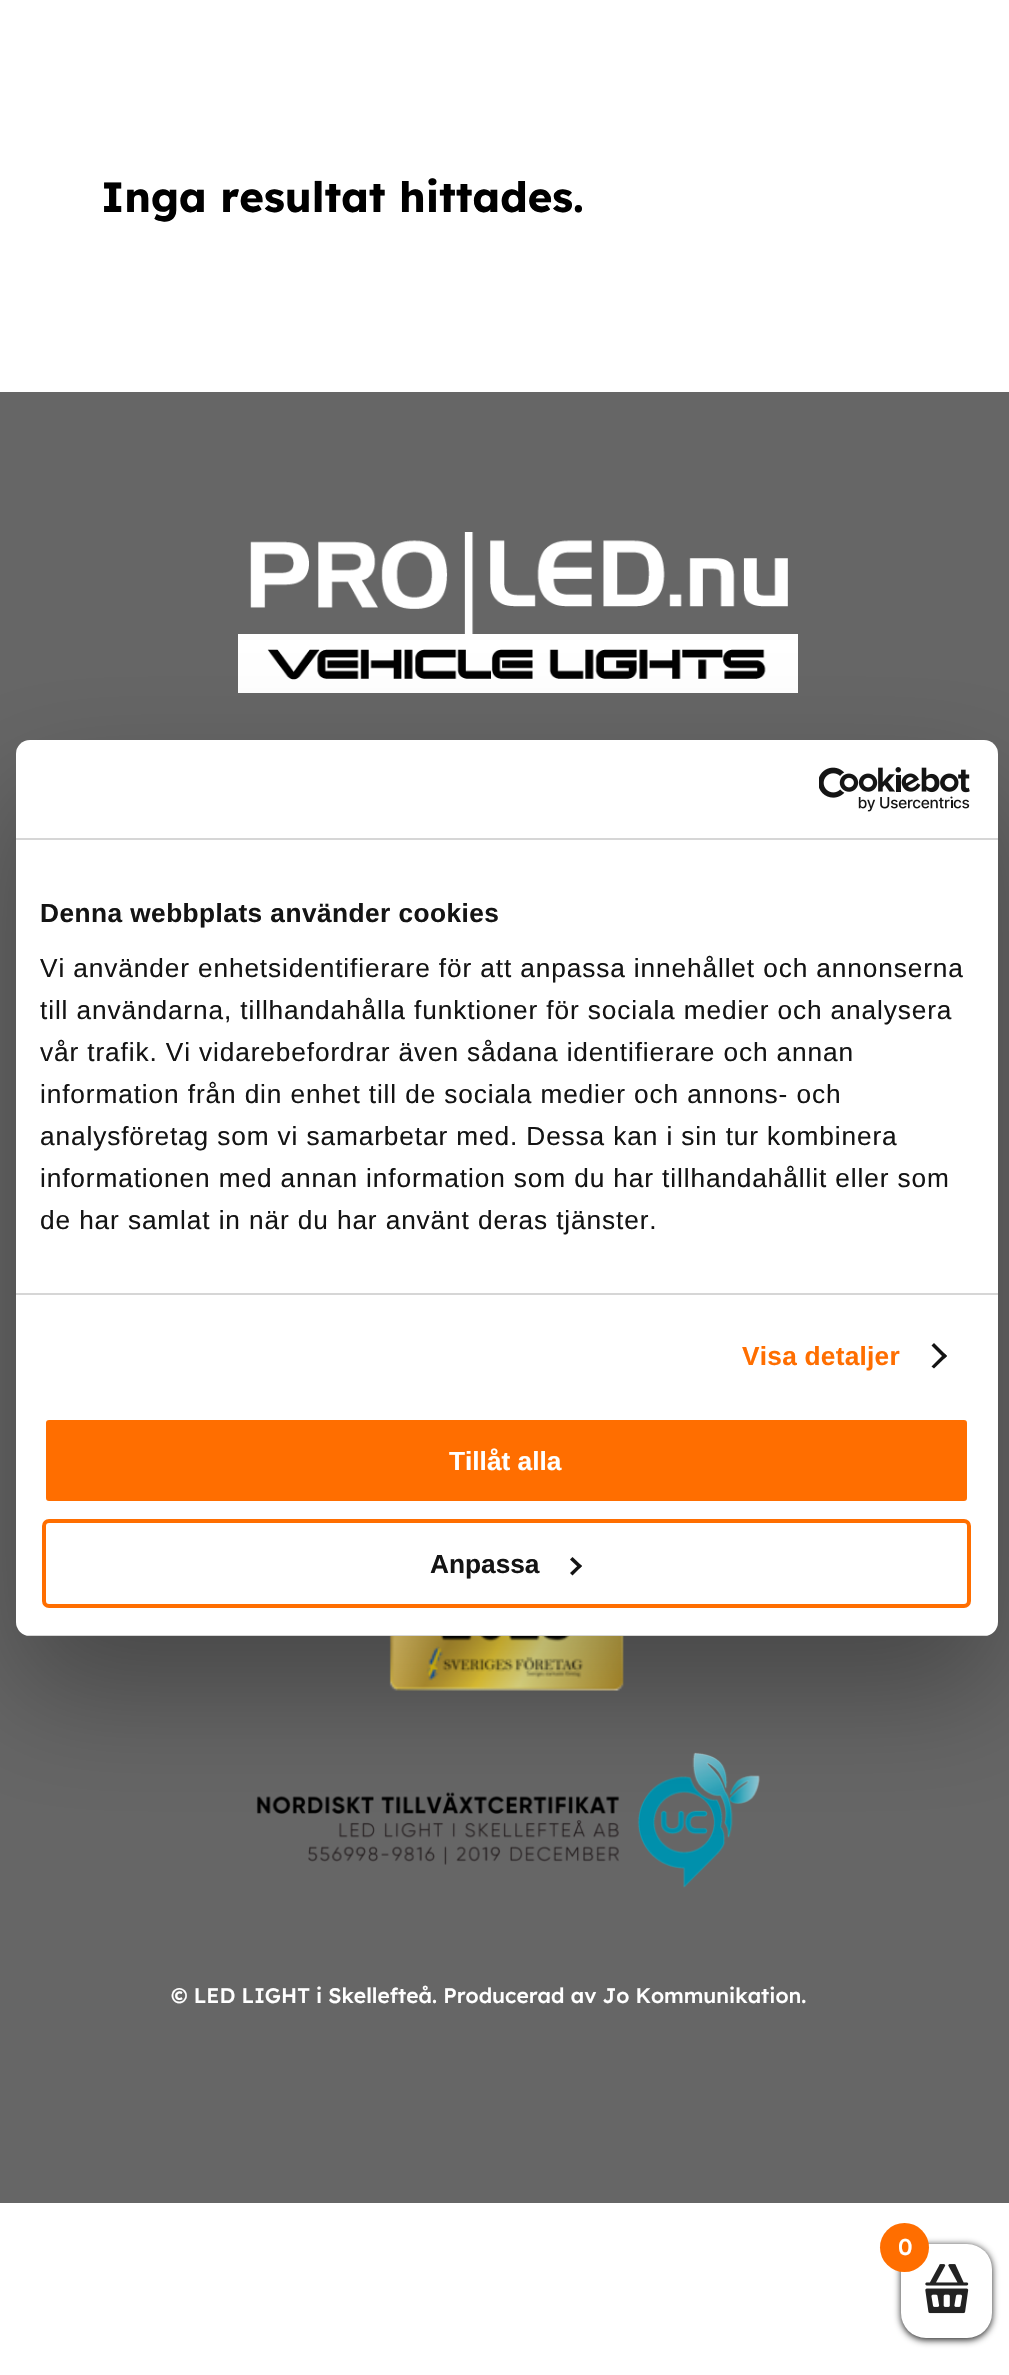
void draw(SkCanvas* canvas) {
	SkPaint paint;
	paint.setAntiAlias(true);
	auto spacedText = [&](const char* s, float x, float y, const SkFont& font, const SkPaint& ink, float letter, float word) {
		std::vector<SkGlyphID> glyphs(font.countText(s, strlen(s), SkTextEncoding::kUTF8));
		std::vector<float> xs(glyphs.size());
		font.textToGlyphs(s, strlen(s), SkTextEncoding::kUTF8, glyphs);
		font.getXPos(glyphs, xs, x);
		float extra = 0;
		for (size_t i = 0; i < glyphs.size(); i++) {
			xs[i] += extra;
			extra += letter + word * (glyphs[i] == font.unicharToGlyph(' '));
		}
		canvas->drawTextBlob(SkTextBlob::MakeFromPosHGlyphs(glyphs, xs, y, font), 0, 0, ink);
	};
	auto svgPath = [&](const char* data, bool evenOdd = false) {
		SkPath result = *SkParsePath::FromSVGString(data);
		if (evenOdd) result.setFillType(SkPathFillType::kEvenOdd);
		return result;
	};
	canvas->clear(0xffffffff);
	SkFont f1(fontMgr->matchFamilyStyle("Lexend Deca", SkFontStyle::Bold()), 42);
	f1.setSubpixel(true);
	paint.setColor(0xff000000);
	canvas->drawString("Inga resultat hittades.", 101, 212, f1, paint);
	paint.setColor(0xff666666);
	canvas->drawRect(SkRect::MakeXYWH(0, 392, 1009, 1811), paint);
	canvas->drawImageRect(SkImages::DeferredFromEncodedData(SkData::MakeFromFileName("img1.png")), SkRect::MakeXYWH(238, 532, 560, 161), SkSamplingOptions());
	canvas->drawImageRect(SkImages::DeferredFromEncodedData(SkData::MakeFromFileName("img2.png")), SkRect::MakeXYWH(389, 1636, 235, 55), SkSamplingOptions());
	canvas->drawImageRect(SkImages::DeferredFromEncodedData(SkData::MakeFromFileName("img3.png")), SkRect::MakeXYWH(256, 1752, 504, 136), SkSamplingOptions());
	SkFont f2(fontMgr->matchFamilyStyle("Lexend Deca", SkFontStyle(500, SkFontStyle::kNormal_Width, SkFontStyle::kUpright_Slant)), 21);
	f2.setSubpixel(true);
	paint.setColor(0xffffffff);
	canvas->drawString("© LED LIGHT i Skellefteå. Producerad av Jo Kommunikation.", 171, 2003, f2, paint);
	paint.setColor(0x4d000000);
	paint.setMaskFilter(SkMaskFilter::MakeBlur(kNormal_SkBlurStyle, 59.5));
	canvas->drawRoundRect(SkRect::MakeXYWH(16, 796, 982, 896), 14, 14, paint);
	paint.setMaskFilter(nullptr);
	paint.setColor(0xffffffff);
	canvas->drawRoundRect(SkRect::MakeXYWH(16, 740, 982, 896), 14, 14, paint);
	paint.setColor(0xffd6d6d6);
	canvas->drawRect(SkRect::MakeXYWH(16, 838, 982, 2), paint);
	canvas->drawImageRect(SkImages::DeferredFromEncodedData(SkData::MakeFromFileName("img4.png")), SkRect::MakeXYWH(819, 767, 151, 45), SkSamplingOptions());
	canvas->drawRect(SkRect::MakeXYWH(16, 1293, 982, 2), paint);
	SkFont f3(fontMgr->matchFamilyStyle("Liberation Sans", SkFontStyle::Bold()), 26.25);
	f3.setSubpixel(true);
	paint.setColor(0xff141414);
	spacedText("Denna webbplats använder cookies", 40, 922, f3, paint, 0.45, 0);
	SkFont f4(fontMgr->matchFamilyStyle("Liberation Sans", SkFontStyle::Normal()), 26.25);
	f4.setSubpixel(true);
	spacedText("Vi använder enhetsidentifierare för att anpassa innehållet och annonserna", 40, 977, f4, paint, 0.88, 0);
	spacedText("till användarna, tillhandahålla funktioner för sociala medier och analysera", 40, 1019, f4, paint, 0.88, 0);
	spacedText("vår trafik. Vi vidarebefordrar även sådana identifierare och annan", 40, 1061, f4, paint, 0.88, 0);
	spacedText("information från din enhet till de sociala medier och annons- och", 40, 1103, f4, paint, 0.88, 0);
	spacedText("analysföretag som vi samarbetar med. Dessa kan i sin tur kombinera", 40, 1145, f4, paint, 0.88, 0);
	spacedText("informationen med annan information som du har tillhandahållit eller som", 40, 1187, f4, paint, 0.88, 0);
	spacedText("de har samlat in när du har använt deras tjänster.", 40, 1229, f4, paint, 0.88, 0);
	paint.setColor(0xffff6e00);
	spacedText("Visa detaljer", 742, 1365, f3, paint, 0.25, 0);
	paint.setColor(0xff141414);
	canvas->drawPath(svgPath("M934 1343L947 1356L944.5 1358.5L931.5 1345.5Z"), paint);
	canvas->drawPath(svgPath("M944.5 1353.5L947 1356L934 1368.5L931.5 1366.5Z"), paint);
	canvas->save();
	canvas->clipPath(svgPath("M30 740H984C991.5 740 998 746.5 998 754V1622C998 1629.5 991.5 1636 984 1636H30C22.5 1636 16 1629.5 16 1622V754C16 746.5 22.5 740 30 740Z"), true);
	paint.setColor(0xffd6d6d6);
	canvas->drawRect(SkRect::MakeXYWH(25, 1635, 964, 1), paint);
	canvas->restore();
	paint.setColor(0xffff6e00);
	canvas->drawRoundRect(SkRect::MakeXYWH(44, 1418, 925, 85), 5, 5, paint);
	paint.setStroke(true);
	paint.setStrokeWidth(4);
	paint.setColor(0xffffffff);
	canvas->drawRoundRect(SkRect::MakeXYWH(44, 1418, 925, 85), 5, 5, paint);
	paint.setStroke(false);
	canvas->drawString("Tillåt alla", 449, 1470, f3, paint);
	paint.setStroke(true);
	paint.setColor(0xffff6e00);
	canvas->drawRoundRect(SkRect::MakeXYWH(44, 1521, 925, 85), 5, 5, paint);
	paint.setStroke(false);
	paint.setColor(0xff141414);
	canvas->drawString("Anpassa", 430, 1573, f3, paint);
	canvas->drawPath(svgPath("M572.5 1557L582 1566L579.5 1568.5L570 1559.5Z"), paint);
	canvas->drawPath(svgPath("M579.5 1564L582 1566L572.5 1575.5L570 1573Z"), paint);
	paint.setColor(0xff222222);
	paint.setMaskFilter(SkMaskFilter::MakeBlur(kNormal_SkBlurStyle, 3.5));
	canvas->drawRoundRect(SkRect::MakeXYWH(901, 2245, 91, 95), 25, 25, paint);
	paint.setMaskFilter(nullptr);
	paint.setColor(0xffffffff);
	canvas->drawRoundRect(SkRect::MakeXYWH(901, 2244, 91, 94), 25, 25, paint);
	paint.setColor(0xffff6e00);
	canvas->drawCircle(904.5, 2247.5, 24.5, paint);
	SkFont f5(fontMgr->matchFamilyStyle("Lexend Deca", SkFontStyle(500, SkFontStyle::kNormal_Width, SkFontStyle::kUpright_Slant)), 23);
	f5.setSubpixel(true);
	paint.setColor(0xffffffff);
	canvas->drawString("0", 898, 2255, f5, paint);
	canvas->drawImageRect(SkImages::DeferredFromEncodedData(SkData::MakeFromFileName("img5.png")), SkRect::MakeXYWH(925, 2264, 44, 50), SkSamplingOptions());
}
